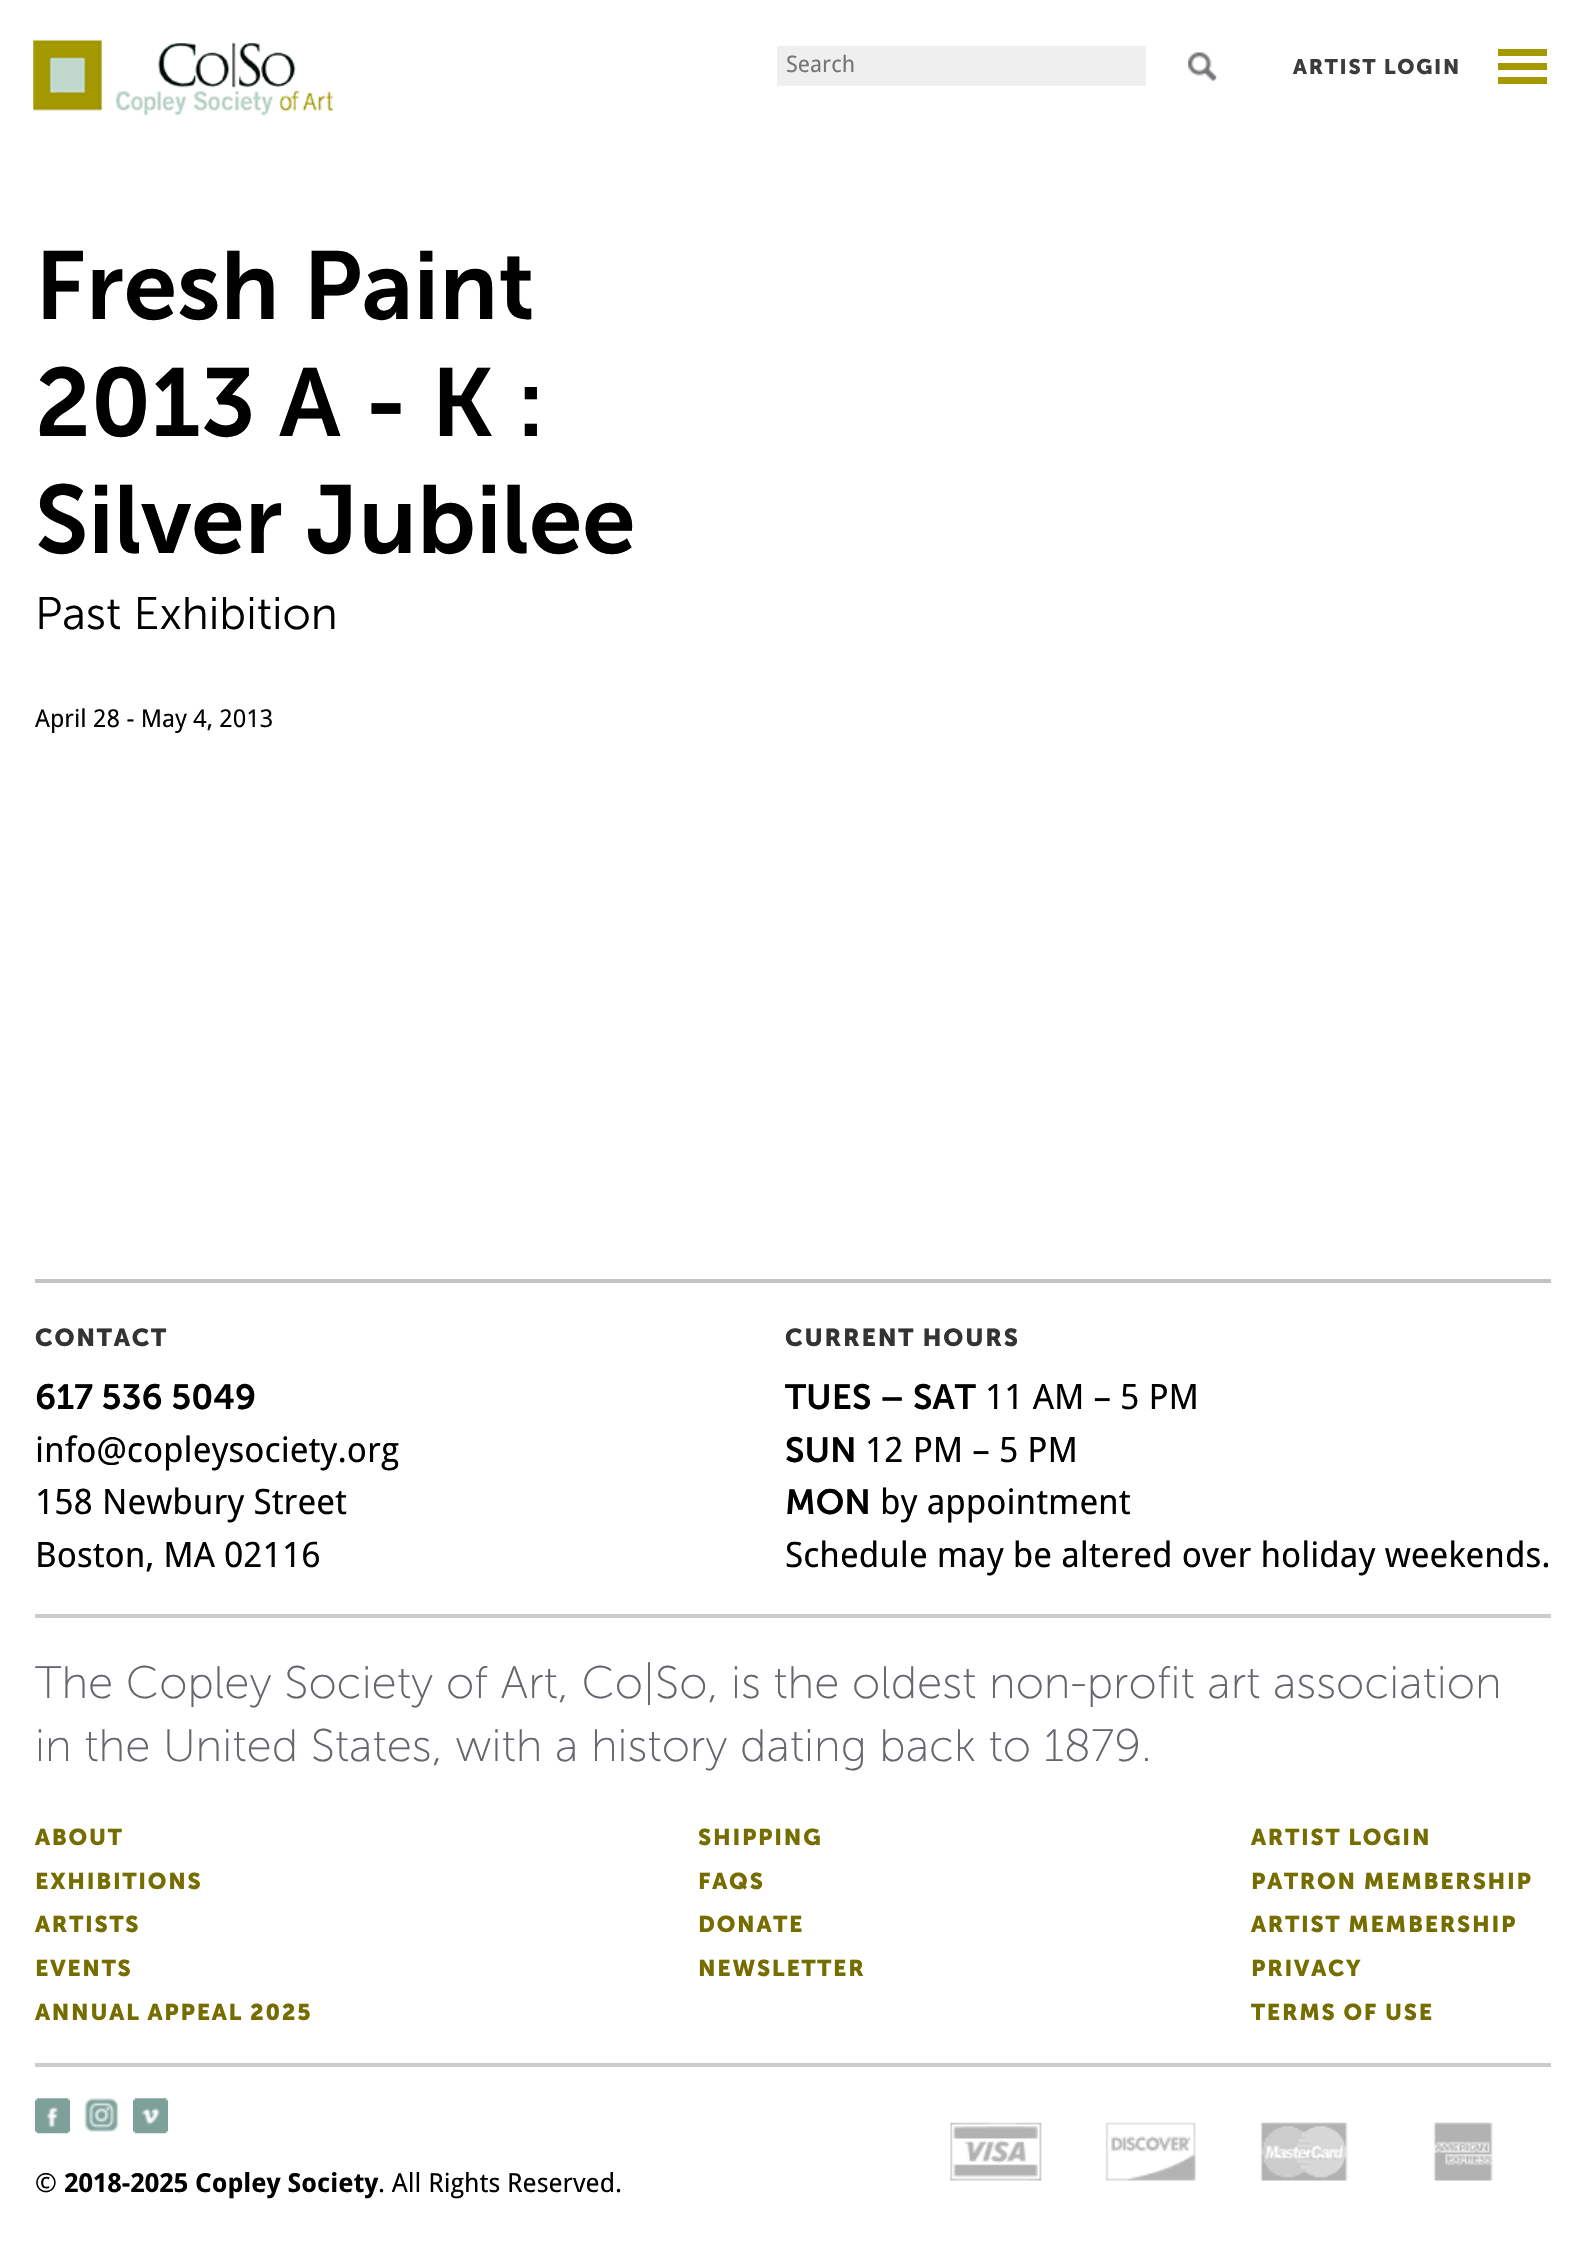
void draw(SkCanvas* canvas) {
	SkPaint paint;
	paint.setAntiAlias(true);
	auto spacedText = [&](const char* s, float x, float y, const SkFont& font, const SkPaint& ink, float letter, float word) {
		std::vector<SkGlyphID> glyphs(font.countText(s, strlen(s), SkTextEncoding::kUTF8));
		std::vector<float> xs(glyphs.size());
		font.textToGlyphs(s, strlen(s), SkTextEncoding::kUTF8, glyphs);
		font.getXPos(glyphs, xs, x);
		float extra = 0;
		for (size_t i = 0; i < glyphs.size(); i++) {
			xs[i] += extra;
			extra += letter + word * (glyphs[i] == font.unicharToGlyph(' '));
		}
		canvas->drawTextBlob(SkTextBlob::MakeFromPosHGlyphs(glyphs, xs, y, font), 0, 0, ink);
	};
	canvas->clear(0xffffffff);
	canvas->drawImageRect(SkImages::DeferredFromEncodedData(SkData::MakeFromFileName("img1.png")), SkRect::MakeXYWH(33, 39, 300, 78), SkSamplingOptions());
	paint.setColor(0xffefefef);
	canvas->drawRect(SkRect::MakeXYWH(777, 46, 369, 40), paint);
	SkFont f1(fontMgr->matchFamilyStyle("Droid Sans", SkFontStyle::Normal()), 22.75);
	f1.setSubpixel(true);
	paint.setColor(0xff757575);
	canvas->drawString("Search", 786, 72, f1, paint);
	canvas->drawImageRect(SkImages::DeferredFromEncodedData(SkData::MakeFromFileName("img2.png")), SkRect::MakeXYWH(1188, 52, 29, 29), SkSamplingOptions());
	SkFont f2(fontMgr->matchFamilyStyle("Museo Sans", SkFontStyle::Bold()), 21);
	f2.setSubpixel(true);
	paint.setColor(0xff3c3c3c);
	spacedText("ARTIST LOGIN", 1293, 74, f2, paint, 1.75, 0);
	paint.setColor(0xffa49900);
	canvas->drawRect(SkRect::MakeXYWH(1498, 49, 49, 7), paint);
	canvas->drawRect(SkRect::MakeXYWH(1498, 63, 49, 7), paint);
	canvas->drawRect(SkRect::MakeXYWH(1498, 77, 49, 7), paint);
	SkFont f3(fontMgr->matchFamilyStyle("Museo Sans", SkFontStyle(600, SkFontStyle::kNormal_Width, SkFontStyle::kUpright_Slant)), 96.25);
	f3.setSubpixel(true);
	paint.setColor(0xff000000);
	canvas->drawString("Fresh Paint", 35, 319, f3, paint);
	canvas->drawString("2013 A - K :", 35, 436, f3, paint);
	canvas->drawString("Silver Jubilee", 35, 553, f3, paint);
	SkFont f4(fontMgr->matchFamilyStyle("Museo Sans", SkFontStyle(300, SkFontStyle::kNormal_Width, SkFontStyle::kUpright_Slant)), 45.5);
	f4.setSubpixel(true);
	canvas->drawString("Past Exhibition", 35, 629, f4, paint);
	SkFont f5(fontMgr->matchFamilyStyle("Droid Sans", SkFontStyle::Normal()), 24.5);
	f5.setSubpixel(true);
	canvas->drawString("April 28 - May 4, 2013", 35, 727, f5, paint);
	paint.setColor(0xffc3c3c3);
	canvas->drawRect(SkRect::MakeXYWH(35, 1279, 1516, 4), paint);
	SkFont f6(fontMgr->matchFamilyStyle("Museo Sans", SkFontStyle::Bold()), 24.5);
	f6.setSubpixel(true);
	paint.setColor(0xff333333);
	spacedText("CONTACT", 35, 1346, f6, paint, 1.75, 0);
	SkFont f7(fontMgr->matchFamilyStyle("Museo Sans", SkFontStyle(600, SkFontStyle::kNormal_Width, SkFontStyle::kUpright_Slant)), 35);
	f7.setSubpixel(true);
	paint.setColor(0xff000000);
	canvas->drawString("617 536 5049", 35, 1409, f7, paint);
	SkFont f8(fontMgr->matchFamilyStyle("Droid Sans", SkFontStyle::Normal()), 35);
	f8.setSubpixel(true);
	canvas->drawString("info@copleysociety.org", 35, 1462, f8, paint);
	canvas->drawString("158 Newbury Street", 35, 1514, f8, paint);
	canvas->drawString("Boston, MA 02116", 35, 1567, f8, paint);
	paint.setColor(0xff333333);
	spacedText("CURRENT HOURS", 785, 1346, f6, paint, 1.75, 0);
	paint.setColor(0xff000000);
	canvas->drawString("TUES – SAT", 785, 1409, f7, paint);
	canvas->drawString("11 AM – 5 PM", 985, 1409, f8, paint);
	canvas->drawString("SUN", 785, 1462, f7, paint);
	canvas->drawString("12 PM – 5 PM", 865, 1462, f8, paint);
	canvas->drawString("MON", 785, 1514, f7, paint);
	canvas->drawString("by appointment", 880, 1514, f8, paint);
	canvas->drawString("Schedule may be altered over holiday weekends.", 785, 1567, f8, paint);
	paint.setColor(0xffcccccc);
	canvas->drawRect(SkRect::MakeXYWH(35, 1614, 1516, 4), paint);
	SkFont f9(fontMgr->matchFamilyStyle("Museo Sans", SkFontStyle(200, SkFontStyle::kNormal_Width, SkFontStyle::kUpright_Slant)), 45.5);
	f9.setSubpixel(true);
	paint.setColor(0xff65656d);
	canvas->drawString("The Copley Society of Art, Co|So, is the oldest non-profit art association", 35, 1698, f9, paint);
	canvas->drawString("in the United States, with a history dating back to 1879.", 35, 1761, f9, paint);
	SkFont f10(fontMgr->matchFamilyStyle("Museo Sans", SkFontStyle::Bold()), 22.75);
	f10.setSubpixel(true);
	paint.setColor(0xff756d00);
	spacedText("ABOUT", 35, 1845, f10, paint, 1.75, 0);
	spacedText("EXHIBITIONS", 35, 1889, f10, paint, 1.75, 0);
	spacedText("ARTISTS", 35, 1932, f10, paint, 1.75, 0);
	spacedText("EVENTS", 35, 1976, f10, paint, 1.75, 0);
	spacedText("ANNUAL APPEAL 2025", 35, 2020, f10, paint, 1.75, 0);
	spacedText("SHIPPING", 698, 1845, f10, paint, 1.75, 0);
	spacedText("FAQS", 698, 1889, f10, paint, 1.75, 0);
	spacedText("DONATE", 698, 1932, f10, paint, 1.75, 0);
	spacedText("NEWSLETTER", 698, 1976, f10, paint, 1.75, 0);
	spacedText("ARTIST LOGIN", 1251, 1845, f10, paint, 1.75, 0);
	spacedText("PATRON MEMBERSHIP", 1251, 1889, f10, paint, 1.75, 0);
	spacedText("ARTIST MEMBERSHIP", 1251, 1932, f10, paint, 1.75, 0);
	spacedText("PRIVACY", 1251, 1976, f10, paint, 1.75, 0);
	spacedText("TERMS OF USE", 1251, 2020, f10, paint, 1.75, 0);
	paint.setColor(0xffcccccc);
	canvas->drawRect(SkRect::MakeXYWH(35, 2063, 1516, 4), paint);
	canvas->drawImageRect(SkImages::DeferredFromEncodedData(SkData::MakeFromFileName("img3.png")), SkRect::MakeXYWH(950, 2122, 92, 59), SkSamplingOptions());
	canvas->drawImageRect(SkImages::DeferredFromEncodedData(SkData::MakeFromFileName("img4.png")), SkRect::MakeXYWH(1105, 2122, 91, 59), SkSamplingOptions());
	canvas->drawImageRect(SkImages::DeferredFromEncodedData(SkData::MakeFromFileName("img5.png")), SkRect::MakeXYWH(1260, 2122, 88, 59), SkSamplingOptions());
	canvas->drawImageRect(SkImages::DeferredFromEncodedData(SkData::MakeFromFileName("img6.png")), SkRect::MakeXYWH(1433, 2122, 60, 59), SkSamplingOptions());
	canvas->drawImageRect(SkImages::DeferredFromEncodedData(SkData::MakeFromFileName("img7.png")), SkRect::MakeXYWH(35, 2098, 35, 36), SkSamplingOptions());
	canvas->drawImageRect(SkImages::DeferredFromEncodedData(SkData::MakeFromFileName("img8.png")), SkRect::MakeXYWH(84, 2098, 35, 34), SkSamplingOptions());
	canvas->drawImageRect(SkImages::DeferredFromEncodedData(SkData::MakeFromFileName("img9.png")), SkRect::MakeXYWH(133, 2098, 35, 36), SkSamplingOptions());
	SkFont f11(fontMgr->matchFamilyStyle("Droid Sans", SkFontStyle::Normal()), 26.25);
	f11.setSubpixel(true);
	paint.setColor(0xff000000);
	canvas->drawString("©", 35, 2192, f11, paint);
	SkFont f12(fontMgr->matchFamilyStyle("Droid Sans", SkFontStyle::Bold()), 26.25);
	f12.setSubpixel(true);
	canvas->drawString("2018-2025 Copley Society", 64, 2192, f12, paint);
	canvas->drawString(". All Rights Reserved.", 378, 2192, f11, paint);
}
